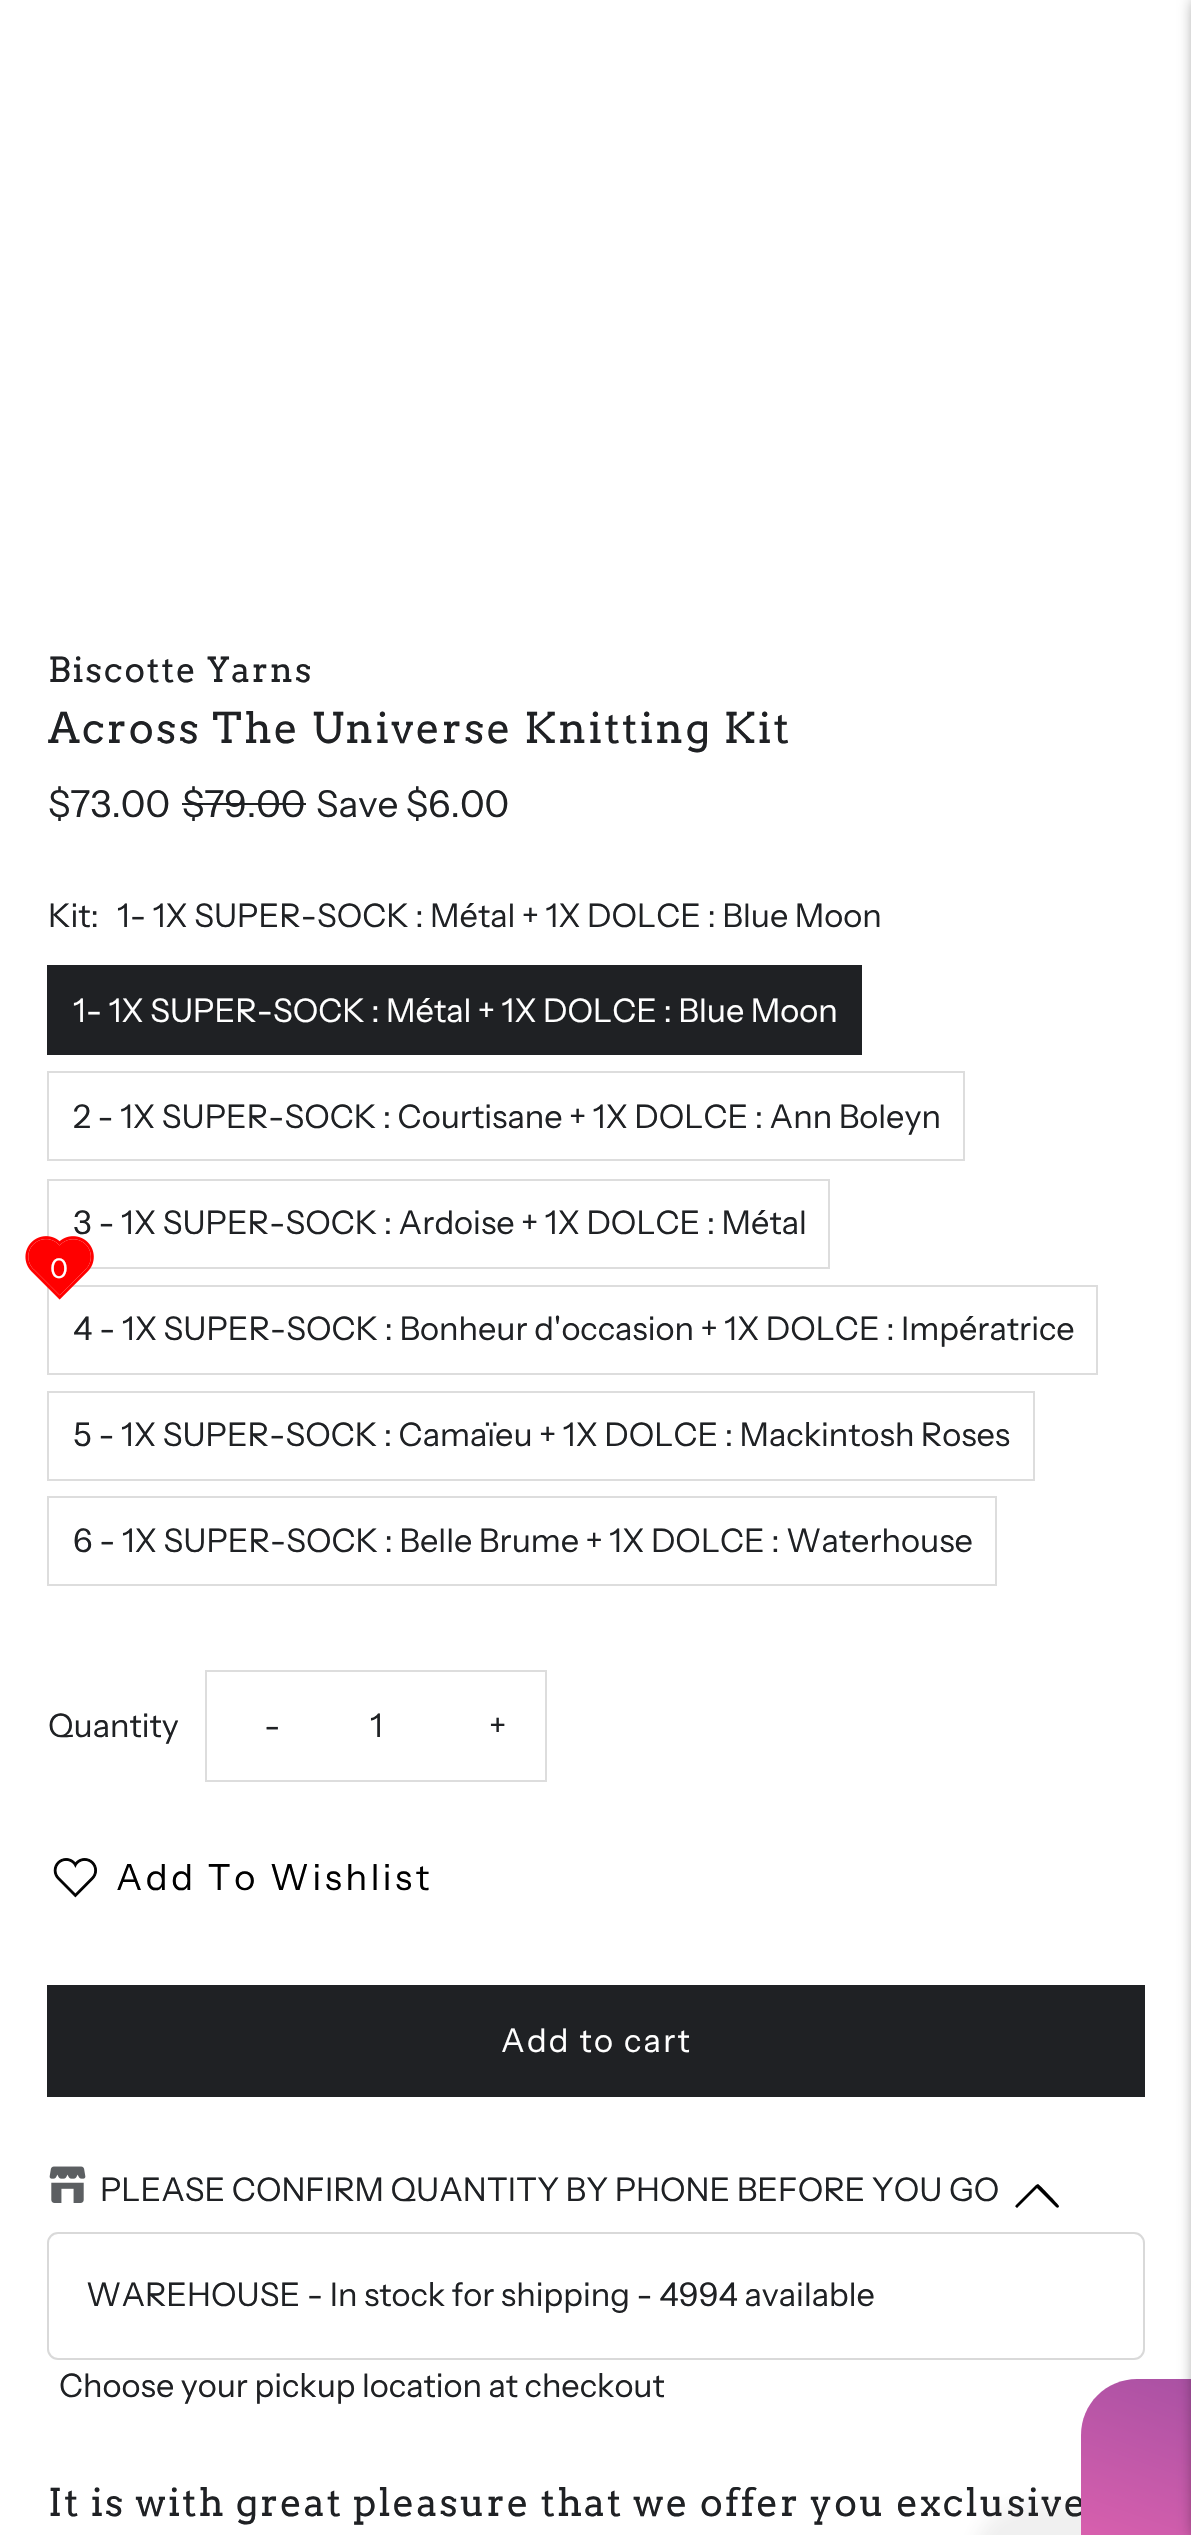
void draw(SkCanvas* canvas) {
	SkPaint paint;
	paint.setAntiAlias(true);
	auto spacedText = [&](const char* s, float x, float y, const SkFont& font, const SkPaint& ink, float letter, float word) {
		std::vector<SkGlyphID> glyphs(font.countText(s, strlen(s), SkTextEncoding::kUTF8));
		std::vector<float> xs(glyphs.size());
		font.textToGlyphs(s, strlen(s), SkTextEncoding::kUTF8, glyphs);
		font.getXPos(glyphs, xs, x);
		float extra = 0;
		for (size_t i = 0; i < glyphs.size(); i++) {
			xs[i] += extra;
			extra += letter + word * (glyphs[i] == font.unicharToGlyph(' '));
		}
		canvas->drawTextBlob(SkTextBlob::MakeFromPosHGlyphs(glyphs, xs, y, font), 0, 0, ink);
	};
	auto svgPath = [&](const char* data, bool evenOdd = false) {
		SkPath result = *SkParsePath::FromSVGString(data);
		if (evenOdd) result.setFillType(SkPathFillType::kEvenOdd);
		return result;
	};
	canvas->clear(0xffffffff);
	SkFont f1(fontMgr->matchFamilyStyle("Arvo", SkFontStyle::Normal()), 34.5);
	f1.setSubpixel(true);
	paint.setColor(0xff1f2124);
	spacedText("Biscotte Yarns", 48, 682, f1, paint, 1.75, 0);
	SkFont f2(fontMgr->matchFamilyStyle("Arvo", SkFontStyle::Normal()), 42.1);
	f2.setSubpixel(true);
	spacedText("Across The Universe Knitting Kit", 48, 743, f2, paint, 2.1, 0);
	SkFont f3(fontMgr->matchFamilyStyle("Instrument Sans", SkFontStyle::Normal()), 37);
	f3.setSubpixel(true);
	canvas->drawString("$73.00", 48, 817, f3, paint);
	canvas->drawString("$79.00", 182, 817, f3, paint);
	canvas->drawRect(SkRect::MakeXYWH(182, 803, 124, 2), paint);
	canvas->drawString("Save $6.00", 316, 817, f3, paint);
	SkFont f4(fontMgr->matchFamilyStyle("Instrument Sans", SkFontStyle::Normal()), 32.5);
	f4.setSubpixel(true);
	canvas->drawString("Kit:", 48, 927, f4, paint);
	canvas->drawString("1- 1X SUPER-SOCK : Métal + 1X DOLCE : Blue Moon", 117, 927, f4, paint);
	canvas->drawRect(SkRect::MakeXYWH(47, 965, 815, 90), paint);
	paint.setColor(0xffffffff);
	canvas->drawString("1- 1X SUPER-SOCK : Métal + 1X DOLCE : Blue Moon", 73, 1022, f4, paint);
	paint.setStroke(true);
	paint.setStrokeWidth(2);
	paint.setColor(0xffdddddd);
	canvas->drawRect(SkRect::MakeXYWH(48, 1072, 916, 88), paint);
	paint.setStroke(false);
	paint.setColor(0xff1f2124);
	canvas->drawString("2 - 1X SUPER-SOCK : Courtisane + 1X DOLCE : Ann Boleyn", 73, 1128, f4, paint);
	paint.setStroke(true);
	paint.setColor(0xffdddddd);
	canvas->drawRect(SkRect::MakeXYWH(48, 1180, 781, 88), paint);
	paint.setStroke(false);
	paint.setColor(0xff1f2124);
	canvas->drawString("3 - 1X SUPER-SOCK : Ardoise + 1X DOLCE : Métal", 73, 1234, f4, paint);
	paint.setStroke(true);
	paint.setColor(0xffdddddd);
	canvas->drawRect(SkRect::MakeXYWH(48, 1286, 1049, 88), paint);
	paint.setStroke(false);
	paint.setColor(0xff1f2124);
	canvas->drawString("4 - 1X SUPER-SOCK : Bonheur d'occasion + 1X DOLCE : Impératrice", 73, 1340, f4, paint);
	paint.setStroke(true);
	paint.setColor(0xffdddddd);
	canvas->drawRect(SkRect::MakeXYWH(48, 1392, 986, 88), paint);
	paint.setStroke(false);
	paint.setColor(0xff1f2124);
	canvas->drawString("5 - 1X SUPER-SOCK : Camaïeu + 1X DOLCE : Mackintosh Roses", 73, 1446, f4, paint);
	paint.setStroke(true);
	paint.setColor(0xffdddddd);
	canvas->drawRect(SkRect::MakeXYWH(48, 1497, 948, 88), paint);
	paint.setStroke(false);
	paint.setColor(0xff1f2124);
	canvas->drawString("6 - 1X SUPER-SOCK : Belle Brume + 1X DOLCE : Waterhouse", 73, 1552, f4, paint);
	canvas->drawString("Quantity", 48, 1737, f4, paint);
	paint.setStroke(true);
	paint.setColor(0xffdddddd);
	canvas->drawRect(SkRect::MakeXYWH(206, 1671, 340, 110), paint);
	paint.setStroke(false);
	paint.setColor(0xff1f2124);
	spacedText("-", 264, 1737, f4, paint, 2.25, 0);
	canvas->drawString("1", 370, 1737, f4, paint);
	spacedText("+", 489, 1737, f4, paint, 2.25, 0);
	canvas->drawImageRect(SkImages::DeferredFromEncodedData(SkData::MakeFromFileName("img1.png")), SkRect::MakeXYWH(53, 1858, 44, 40), SkSamplingOptions());
	SkFont f5(fontMgr->matchFamilyStyle("Instrument Sans", SkFontStyle::Normal()), 36);
	f5.setSubpixel(true);
	paint.setColor(0xff000000);
	spacedText("Add To Wishlist", 116, 1890, f5, paint, 3.6, 0);
	paint.setColor(0xff1f2124);
	canvas->drawRect(SkRect::MakeXYWH(47, 1985, 1098, 112), paint);
	paint.setColor(0xffffffff);
	spacedText("Add to cart", 501, 2052, f4, paint, 2.25, 0);
	canvas->drawImageRect(SkImages::DeferredFromEncodedData(SkData::MakeFromFileName("img2.png")), SkRect::MakeXYWH(49, 2166, 37, 37), SkSamplingOptions());
	paint.setColor(0xff1f2124);
	canvas->drawString("PLEASE CONFIRM QUANTITY BY PHONE BEFORE YOU GO", 100, 2201, f4, paint);
	paint.setColor(0xff000000);
	canvas->drawPath(svgPath("M1036 2185L1038 2184C1039 2184 1059 2205 1059 2206C1059 2208 1057 2208 1056 2207L1037 2188L1018 2207C1018 2208 1016 2208 1016 2207C1015 2207 1015 2206 1016 2205Z", true), paint);
	paint.setStroke(true);
	paint.setColor(0xffd9d9d9);
	canvas->drawRoundRect(SkRect::MakeXYWH(48, 2233, 1096, 126), 10, 10, paint);
	paint.setStroke(false);
	paint.setColor(0xff1f2124);
	canvas->drawString("WAREHOUSE - In stock for shipping - 4994 available", 86, 2306, f4, paint);
	canvas->drawString("Choose your pickup location at checkout", 59, 2397, f4, paint);
	SkFont f6(fontMgr->matchFamilyStyle("Arvo", SkFontStyle::Normal()), 38.25);
	f6.setSubpixel(true);
	spacedText("It is with great pleasure that we offer you exclusive", 48, 2516, f6, paint, 1.9, 0);
	canvas->drawImageRect(SkImages::DeferredFromEncodedData(SkData::MakeFromFileName("img3.png")), SkRect::MakeXYWH(25, 1236, 69, 64), SkSamplingOptions());
	SkFont f7(fontMgr->matchFamilyStyle("Instrument Sans", SkFontStyle::Normal()), 27);
	f7.setSubpixel(true);
	paint.setColor(0xffffffff);
	canvas->drawString("0", 50, 1278, f7, paint);
	paint.setColor(0x14444444);
	paint.setMaskFilter(SkMaskFilter::MakeBlur(kNormal_SkBlurStyle, 9));
	canvas->drawRoundRect(SkRect::MakeXYWH(974, 2504, 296, 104), 52, 52, paint);
	paint.setMaskFilter(nullptr);
	{
		const SkColor colors[] = {0xffed66b2, 0xff86469c};
		const float stops[] = {0.17, 1};
		const SkPoint ends[] = {{1078, 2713}, {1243, 2247}};
		paint.setShader(SkGradientShader::MakeLinear(ends, colors, stops, 2, SkTileMode::kClamp));
		paint.setAlpha(255);
	}
	canvas->drawPath(svgPath("M1081 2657V2435C1081 2404 1106 2379 1137 2379H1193V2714H1137C1106 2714 1081 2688 1081 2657Z"), paint);
	paint.setShader(nullptr);
	paint.setColor(0x80000000);
	paint.setMaskFilter(SkMaskFilter::MakeBlur(kNormal_SkBlurStyle, 8));
	canvas->drawRect(SkRect::MakeXYWH(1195, 0, 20, 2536), paint);
	paint.setMaskFilter(nullptr);
}
